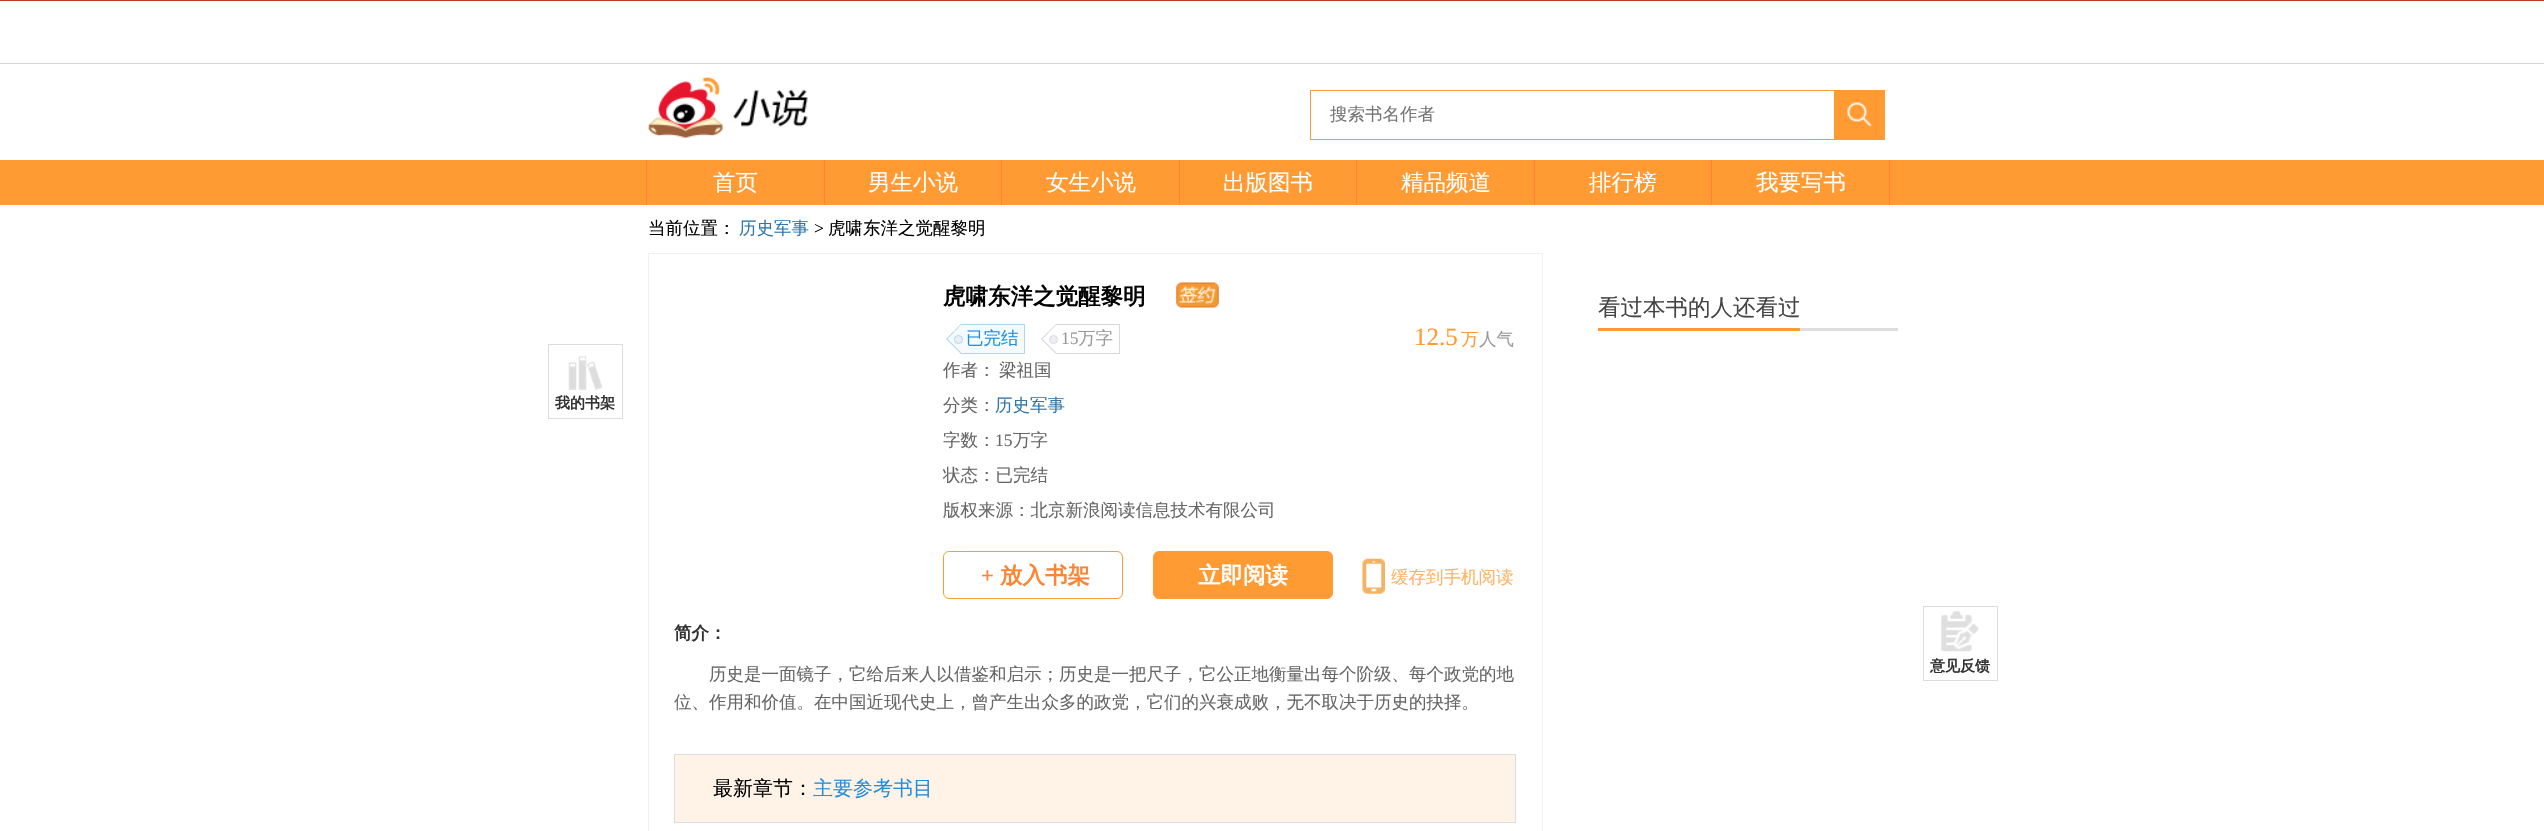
void draw(SkCanvas* canvas) {
	SkPaint paint;
	paint.setAntiAlias(true);
	auto svgPath = [&](const char* data, bool evenOdd = false) {
		SkPath result = *SkParsePath::FromSVGString(data);
		if (evenOdd) result.setFillType(SkPathFillType::kEvenOdd);
		return result;
	};
	canvas->clear(0xffffffff);
	paint.setColor(0xffbb3923);
	canvas->drawRect(SkRect::MakeXYWH(0, 0, 2544, 1), paint);
	paint.setColor(0xffd5d5d5);
	canvas->drawRect(SkRect::MakeXYWH(0, 63, 2544, 1), paint);
	canvas->drawImageRect(SkImages::DeferredFromEncodedData(SkData::MakeFromFileName("img1.png")), SkRect::MakeXYWH(648, 77, 160, 61), SkSamplingOptions());
	paint.setStroke(true);
	paint.setStrokeWidth(1);
	paint.setColor(0xffff9b32);
	canvas->drawRect(SkRect::MakeXYWH(1310.5, 90.5, 524, 49), paint);
	SkFont f1(fontMgr->matchFamilyStyle("WenQuanYi Zen Hei", SkFontStyle(500, SkFontStyle::kNormal_Width, SkFontStyle::kUpright_Slant)), 17.5);
	f1.setSubpixel(true);
	paint.setStroke(false);
	paint.setColor(0xff757575);
	canvas->drawString("搜索书名作者", 1330, 120, f1, paint);
	paint.setColor(0xffff9b32);
	canvas->drawRect(SkRect::MakeXYWH(1835, 90, 50, 50), paint);
	canvas->drawImageRect(SkImages::DeferredFromEncodedData(SkData::MakeFromFileName("img2.png")), SkRect::MakeXYWH(1847, 102, 25, 25), SkSamplingOptions());
	canvas->drawRect(SkRect::MakeXYWH(0, 160, 2544, 45), paint);
	paint.setColor(0xffff8432);
	canvas->drawRect(SkRect::MakeXYWH(646, 160, 1, 45), paint);
	canvas->drawRect(SkRect::MakeXYWH(824, 160, 1, 45), paint);
	SkFont f2(fontMgr->matchFamilyStyle("WenQuanYi Zen Hei", SkFontStyle(500, SkFontStyle::kNormal_Width, SkFontStyle::kUpright_Slant)), 22.5);
	f2.setSubpixel(true);
	paint.setColor(0xffffffff);
	canvas->drawString("首页", 713, 190, f2, paint);
	paint.setColor(0xffff8432);
	canvas->drawRect(SkRect::MakeXYWH(1001, 160, 1, 45), paint);
	paint.setColor(0xffffffff);
	canvas->drawString("男生小说", 868, 190, f2, paint);
	paint.setColor(0xffff8432);
	canvas->drawRect(SkRect::MakeXYWH(1179, 160, 1, 45), paint);
	paint.setColor(0xffffffff);
	canvas->drawString("女生小说", 1046, 190, f2, paint);
	paint.setColor(0xffff8432);
	canvas->drawRect(SkRect::MakeXYWH(1356, 160, 1, 45), paint);
	paint.setColor(0xffffffff);
	canvas->drawString("出版图书", 1223, 190, f2, paint);
	paint.setColor(0xffff8432);
	canvas->drawRect(SkRect::MakeXYWH(1534, 160, 1, 45), paint);
	paint.setColor(0xffffffff);
	canvas->drawString("精品频道", 1401, 190, f2, paint);
	paint.setColor(0xffff8432);
	canvas->drawRect(SkRect::MakeXYWH(1711, 160, 1, 45), paint);
	paint.setColor(0xffffffff);
	canvas->drawString("排行榜", 1589, 190, f2, paint);
	paint.setColor(0xffff8432);
	canvas->drawRect(SkRect::MakeXYWH(1889, 160, 1, 45), paint);
	paint.setColor(0xffffffff);
	canvas->drawString("我要写书", 1756, 190, f2, paint);
	canvas->drawImageRect(SkImages::DeferredFromEncodedData(SkData::MakeFromFileName("img3.png")), SkRect::MakeXYWH(568, 356, 35, 35), SkSamplingOptions());
	paint.setStroke(true);
	paint.setColor(0xffdddddd);
	canvas->drawRect(SkRect::MakeXYWH(548.5, 344.5, 74, 74), paint);
	SkFont f3(fontMgr->matchFamilyStyle("WenQuanYi Zen Hei", SkFontStyle::Bold()), 15);
	f3.setSubpixel(true);
	paint.setStroke(false);
	paint.setColor(0xff333333);
	canvas->drawString("我的书架", 555, 408, f3, paint);
	paint.setStroke(true);
	paint.setColor(0xffdddddd);
	canvas->drawRect(SkRect::MakeXYWH(1923.5, 606.5, 74, 74), paint);
	canvas->drawImageRect(SkImages::DeferredFromEncodedData(SkData::MakeFromFileName("img4.png")), SkRect::MakeXYWH(1941, 611, 38, 41), SkSamplingOptions());
	paint.setStroke(false);
	paint.setColor(0xff333333);
	canvas->drawString("意见反馈", 1930, 671, f3, paint);
	paint.setColor(0xff000000);
	canvas->drawString("当前位置：", 648, 234, f1, paint);
	paint.setColor(0xff3377aa);
	canvas->drawString("历史军事", 739, 234, f1, paint);
	SkFont f4(fontMgr->matchFamilyStyle("Liberation Serif", SkFontStyle::Normal()), 17.5);
	f4.setSubpixel(true);
	paint.setColor(0xff000000);
	canvas->drawString(">", 814, 234, f4, paint);
	canvas->drawString("虎啸东洋之觉醒黎明", 828, 234, f1, paint);
	paint.setStroke(true);
	paint.setColor(0xfff1f1f1);
	canvas->drawRect(SkRect::MakeXYWH(648.5, 253.5, 894, 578), paint);
	SkFont f5(fontMgr->matchFamilyStyle("WenQuanYi Zen Hei", SkFontStyle::Bold()), 22.5);
	f5.setSubpixel(true);
	paint.setStroke(false);
	paint.setColor(0xff000000);
	canvas->drawString("虎啸东洋之觉醒黎明", 943, 304, f5, paint);
	canvas->drawImageRect(SkImages::DeferredFromEncodedData(SkData::MakeFromFileName("img5.png")), SkRect::MakeXYWH(1176, 282, 43, 26), SkSamplingOptions());
	paint.setColor(0xffafd7eb);
	canvas->drawPath(svgPath("M961 324V354L946 339Z"), paint);
	paint.setColor(0xfff5faff);
	canvas->drawPath(svgPath("M961 325V352.5L947.5 339Z"), paint);
	canvas->drawRect(SkRect::MakeXYWH(961, 325, 63, 28), paint);
	paint.setColor(0xffafd7eb);
	canvas->drawRect(SkRect::MakeXYWH(961, 324, 64, 1), paint);
	canvas->drawRect(SkRect::MakeXYWH(1024, 324, 1, 30), paint);
	canvas->drawRect(SkRect::MakeXYWH(961, 353, 64, 1), paint);
	paint.setColor(0xff228fdd);
	canvas->drawString("已完结", 966, 344, f1, paint);
	paint.setColor(0xffeceef3);
	canvas->drawCircle(958.5, 339.5, 4, paint);
	paint.setStroke(true);
	paint.setColor(0xffafd7eb);
	canvas->drawCircle(958.5, 339.5, 4, paint);
	paint.setStroke(false);
	paint.setColor(0xffd8d8d8);
	canvas->drawPath(svgPath("M1056 324V354L1041 339Z"), paint);
	paint.setColor(0xffffffff);
	canvas->drawPath(svgPath("M1056 325V352.5L1042.5 339Z"), paint);
	paint.setColor(0xffd8d8d8);
	canvas->drawRect(SkRect::MakeXYWH(1056, 324, 64, 1), paint);
	canvas->drawRect(SkRect::MakeXYWH(1119, 324, 1, 30), paint);
	canvas->drawRect(SkRect::MakeXYWH(1056, 353, 64, 1), paint);
	paint.setColor(0xff999999);
	canvas->drawString("15", 1061, 344, f4, paint);
	canvas->drawString("万字", 1078, 344, f1, paint);
	paint.setColor(0xffeceef3);
	canvas->drawCircle(1053.5, 339.5, 4, paint);
	paint.setStroke(true);
	paint.setColor(0xffdcdddf);
	canvas->drawCircle(1053.5, 339.5, 4, paint);
	SkFont f6(fontMgr->matchFamilyStyle("Liberation Serif", SkFontStyle::Normal()), 25);
	f6.setSubpixel(true);
	paint.setStroke(false);
	paint.setColor(0xffff9b32);
	canvas->drawString("12.5", 1414, 345, f6, paint);
	canvas->drawString("万", 1461, 345, f1, paint);
	paint.setColor(0xff999999);
	canvas->drawString("人气", 1479, 345, f1, paint);
	paint.setColor(0xff666666);
	canvas->drawString("作者：", 943, 376, f1, paint);
	canvas->drawString("梁祖国", 999, 376, f1, paint);
	canvas->drawString("分类：", 943, 411, f1, paint);
	paint.setColor(0xff3377aa);
	canvas->drawString("历史军事", 995, 411, f1, paint);
	paint.setColor(0xff666666);
	canvas->drawString("字数：", 943, 446, f1, paint);
	canvas->drawString("15", 995, 446, f4, paint);
	canvas->drawString("万字", 1013, 446, f1, paint);
	canvas->save();
	canvas->clipRect(SkRect::MakeXYWH(943, 273, 571, 327));
	canvas->drawString("状态：已完结", 943, 481, f1, paint);
	canvas->restore();
	canvas->drawString("版权来源：北京新浪阅读信息技术有限公司", 943, 516, f1, paint);
	paint.setStroke(true);
	paint.setColor(0xffff9b32);
	canvas->drawRoundRect(SkRect::MakeXYWH(943.5, 551.5, 179, 47), 5.5, 5.5, paint);
	SkFont f7(fontMgr->matchFamilyStyle("Liberation Serif", SkFontStyle::Bold()), 22.5);
	f7.setSubpixel(true);
	paint.setStroke(false);
	paint.setColor(0xffff8432);
	canvas->drawString("+", 981, 583, f7, paint);
	canvas->drawString("放入书架", 1000, 583, f5, paint);
	paint.setColor(0xffff9b32);
	canvas->drawRoundRect(SkRect::MakeXYWH(1153.5, 551.5, 179, 47), 5.5, 5.5, paint);
	paint.setStroke(true);
	canvas->drawRoundRect(SkRect::MakeXYWH(1153.5, 551.5, 179, 47), 5.5, 5.5, paint);
	paint.setStroke(false);
	paint.setColor(0xffffffff);
	canvas->drawString("立即阅读", 1198, 583, f5, paint);
	canvas->drawImageRect(SkImages::DeferredFromEncodedData(SkData::MakeFromFileName("img6.png")), SkRect::MakeXYWH(1362, 558, 23, 36), SkSamplingOptions());
	paint.setColor(0xffffb364);
	canvas->drawString("缓存到手机阅读", 1391, 583, f1, paint);
	SkFont f8(fontMgr->matchFamilyStyle("WenQuanYi Zen Hei", SkFontStyle::Bold()), 17.5);
	f8.setSubpixel(true);
	paint.setColor(0xff333333);
	canvas->drawString("简介：", 674, 639, f8, paint);
	paint.setColor(0xff666666);
	canvas->drawString("历史是一面镜子，它给后来人以借鉴和启示；历史是一把尺子，它公正地衡量出每个阶级、每个政党的地", 709, 680, f1, paint);
	canvas->drawString("位、作用和价值。在中国近现代史上，曾产生出众多的政党，它们的兴衰成败，无不取决于历史的抉择。", 674, 708, f1, paint);
	paint.setColor(0xfffff3e7);
	canvas->drawRect(SkRect::MakeXYWH(674.5, 754.5, 841, 68), paint);
	paint.setStroke(true);
	paint.setColor(0xffdddddd);
	canvas->drawRect(SkRect::MakeXYWH(674.5, 754.5, 841, 68), paint);
	SkFont f9(fontMgr->matchFamilyStyle("WenQuanYi Zen Hei", SkFontStyle(500, SkFontStyle::kNormal_Width, SkFontStyle::kUpright_Slant)), 20);
	f9.setSubpixel(true);
	paint.setStroke(false);
	paint.setColor(0xff000000);
	canvas->drawString("最新章节：", 713, 795, f9, paint);
	paint.setColor(0xff228fdd);
	canvas->drawString("主要参考书目", 813, 795, f9, paint);
	paint.setColor(0xffdddddd);
	canvas->drawRect(SkRect::MakeXYWH(1800, 328, 98, 3), paint);
	paint.setColor(0xffff9b32);
	canvas->drawRect(SkRect::MakeXYWH(1598, 328, 202, 3), paint);
	paint.setColor(0xff444444);
	canvas->drawString("看过本书的人还看过", 1598, 315, f2, paint);
}
